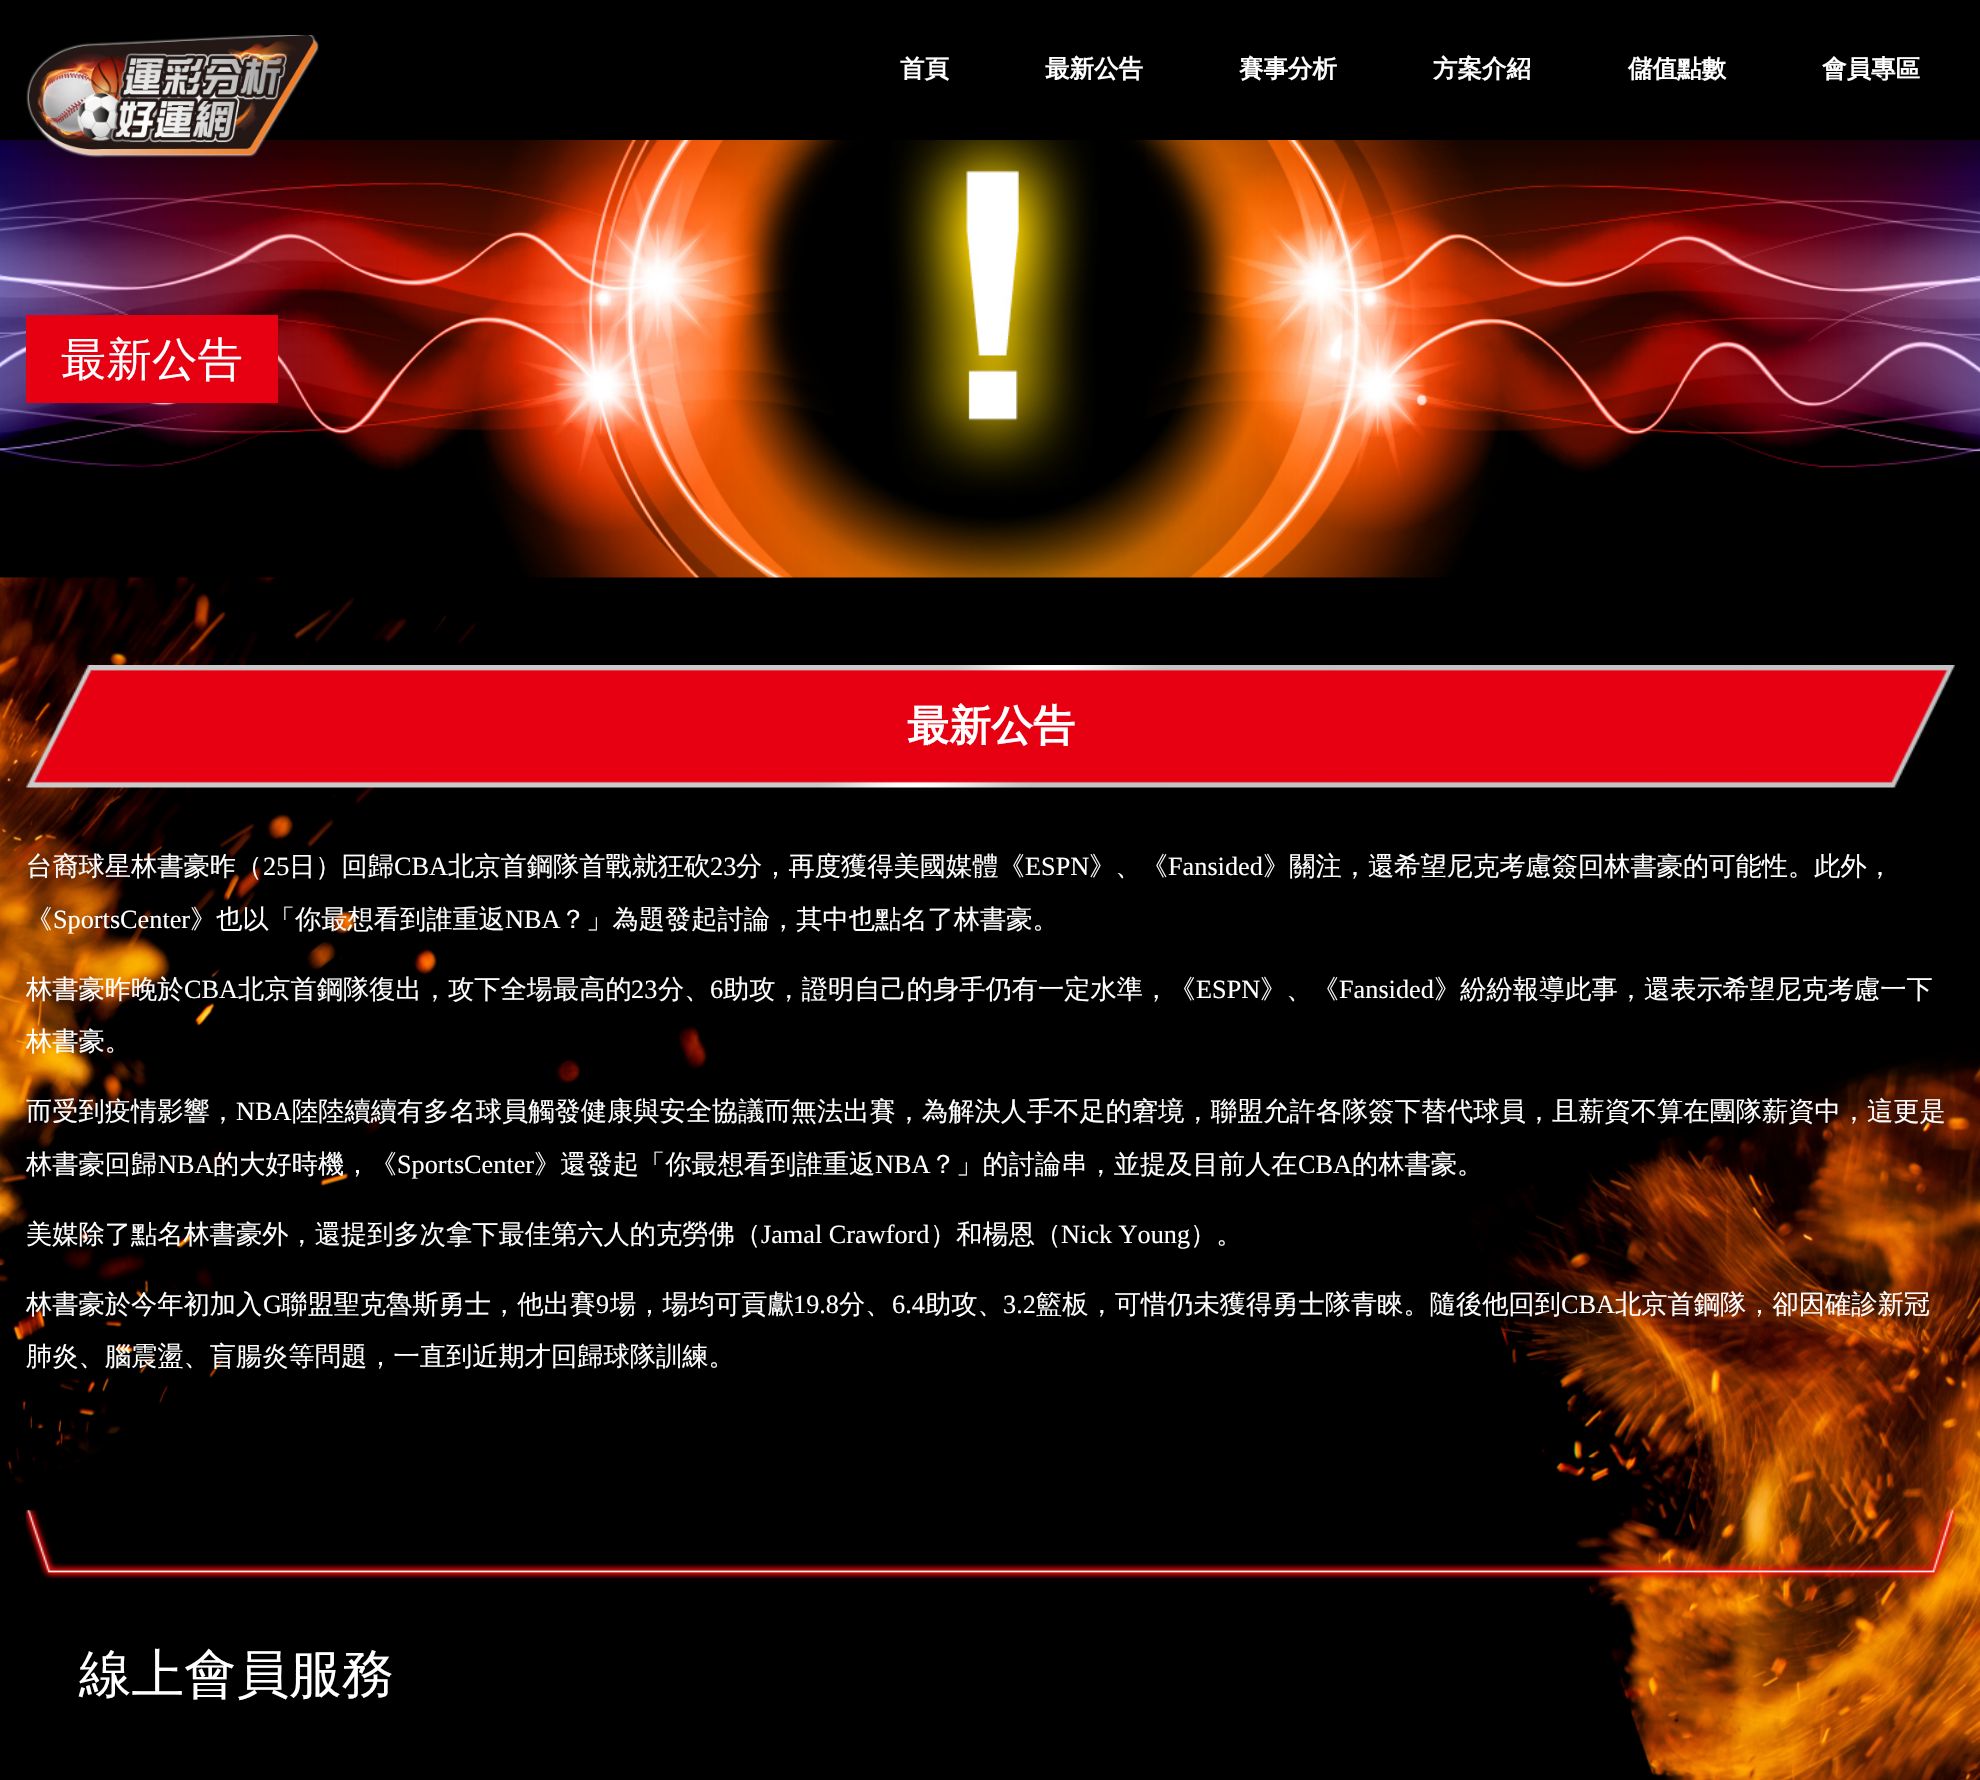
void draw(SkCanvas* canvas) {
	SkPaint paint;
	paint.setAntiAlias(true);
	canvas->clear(0xff000000);
	canvas->drawImageRect(SkImages::DeferredFromEncodedData(SkData::MakeFromFileName("img5.png")), SkRect::MakeXYWH(0, 577, 1980, 1203), SkSamplingOptions());
	canvas->drawImageRect(SkImages::DeferredFromEncodedData(SkData::MakeFromFileName("img2.png")), SkRect::MakeXYWH(0, 140, 1980, 438), SkSamplingOptions());
	canvas->drawImageRect(SkImages::DeferredFromEncodedData(SkData::MakeFromFileName("img1.png")), SkRect::MakeXYWH(26, 35, 293, 123), SkSamplingOptions());
	SkFont f1(fontMgr->matchFamilyStyle("WenQuanYi Zen Hei", SkFontStyle::Bold()), 24.5);
	f1.setSubpixel(true);
	paint.setColor(0xffffffff);
	canvas->drawString("首頁", 900, 77, f1, paint);
	canvas->drawString("最新公告", 1045, 77, f1, paint);
	canvas->drawString("賽事分析", 1239, 77, f1, paint);
	canvas->drawString("方案介紹", 1433, 77, f1, paint);
	canvas->drawString("儲值點數", 1628, 77, f1, paint);
	canvas->drawString("會員專區", 1822, 77, f1, paint);
	paint.setColor(0xffe70012);
	canvas->drawRect(SkRect::MakeXYWH(26, 315, 252, 88), paint);
	SkFont f2(fontMgr->matchFamilyStyle("WenQuanYi Zen Hei", SkFontStyle(500, SkFontStyle::kNormal_Width, SkFontStyle::kUpright_Slant)), 45.5);
	f2.setSubpixel(true);
	paint.setColor(0xffffffff);
	canvas->drawString("最新公告", 61, 375, f2, paint);
	canvas->drawImageRect(SkImages::DeferredFromEncodedData(SkData::MakeFromFileName("img3.png")), SkRect::MakeXYWH(26, 665, 1929, 123), SkSamplingOptions());
	SkFont f3(fontMgr->matchFamilyStyle("WenQuanYi Zen Hei", SkFontStyle::Bold()), 42);
	f3.setSubpixel(true);
	canvas->drawString("最新公告", 907, 740, f3, paint);
	SkFont f4(fontMgr->matchFamilyStyle("WenQuanYi Zen Hei", SkFontStyle(500, SkFontStyle::kNormal_Width, SkFontStyle::kUpright_Slant)), 26.25);
	f4.setSubpixel(true);
	canvas->drawString("台裔球星林書豪昨（", 26, 875, f4, paint);
	SkFont f5(fontMgr->matchFamilyStyle("Liberation Serif", SkFontStyle::Normal()), 26.25);
	f5.setSubpixel(true);
	canvas->drawString("25", 263, 875, f5, paint);
	canvas->drawString("日）回歸", 289, 875, f4, paint);
	canvas->drawString("CBA", 394, 875, f5, paint);
	canvas->drawString("北京首鋼隊首戰就狂砍", 448, 875, f4, paint);
	canvas->drawString("23", 710, 875, f5, paint);
	canvas->drawString("分，再度獲得美國媒體《", 736, 875, f4, paint);
	canvas->drawString("ESPN", 1025, 875, f5, paint);
	canvas->drawString("》、《", 1089, 875, f4, paint);
	canvas->drawString("Fansided", 1168, 875, f5, paint);
	canvas->drawString("》關注，還希望尼克考慮簽回林書豪的可能性。此外，", 1263, 875, f4, paint);
	canvas->drawString("《", 26, 928, f4, paint);
	canvas->drawString("SportsCenter", 53, 928, f5, paint);
	canvas->drawString("》也以「你最想看到誰重返", 190, 928, f4, paint);
	canvas->drawString("NBA", 505, 928, f5, paint);
	canvas->drawString("？」為題發起討論，其中也點名了林書豪。", 560, 928, f4, paint);
	canvas->drawString("林書豪昨晚於", 26, 998, f4, paint);
	canvas->drawString("CBA", 184, 998, f5, paint);
	canvas->drawString("北京首鋼隊復出，攻下全場最高的", 238, 998, f4, paint);
	canvas->drawString("23", 631, 998, f5, paint);
	canvas->drawString("分、", 658, 998, f4, paint);
	canvas->drawString("6", 710, 998, f5, paint);
	canvas->drawString("助攻，證明自己的身手仍有一定水準，《", 723, 998, f4, paint);
	canvas->drawString("ESPN", 1196, 998, f5, paint);
	canvas->drawString("》、《", 1260, 998, f4, paint);
	canvas->drawString("Fansided", 1339, 998, f5, paint);
	canvas->drawString("》紛紛報導此事，還表示希望尼克考慮一下", 1434, 998, f4, paint);
	canvas->drawString("林書豪。", 26, 1050, f4, paint);
	canvas->drawString("而受到疫情影響，", 26, 1120, f4, paint);
	canvas->drawString("NBA", 236, 1120, f5, paint);
	canvas->drawString("陸陸續續有多名球員觸發健康與安全協議而無法出賽，為解決人手不足的窘境，聯盟允許各隊簽下替代球員，且薪資不算在團隊薪資中，這更是", 292, 1120, f4, paint);
	canvas->drawString("林書豪回歸", 26, 1173, f4, paint);
	canvas->drawString("NBA", 158, 1173, f5, paint);
	canvas->drawString("的大好時機，《", 213, 1173, f4, paint);
	canvas->drawString("SportsCenter", 397, 1173, f5, paint);
	canvas->drawString("》還發起「你最想看到誰重返", 534, 1173, f4, paint);
	canvas->drawString("NBA", 875, 1173, f5, paint);
	canvas->drawString("？」的討論串，並提及目前人在", 930, 1173, f4, paint);
	canvas->drawString("CBA", 1298, 1173, f5, paint);
	canvas->drawString("的林書豪。", 1352, 1173, f4, paint);
	canvas->drawString("美媒除了點名林書豪外，還提到多次拿下最佳第六人的克勞佛（", 26, 1243, f4, paint);
	canvas->drawString("Jamal Crawford", 761, 1243, f5, paint);
	canvas->drawString("）和楊恩（", 930, 1243, f4, paint);
	canvas->drawString("Nick Young", 1061, 1243, f5, paint);
	canvas->drawString("）。", 1190, 1243, f4, paint);
	canvas->drawString("林書豪於今年初加入", 26, 1313, f4, paint);
	canvas->drawString("G", 263, 1313, f5, paint);
	canvas->drawString("聯盟聖克魯斯勇士，他出賽", 281, 1313, f4, paint);
	canvas->drawString("9", 596, 1313, f5, paint);
	canvas->drawString("場，場均可貢獻", 610, 1313, f4, paint);
	canvas->drawString("19.8", 793, 1313, f5, paint);
	canvas->drawString("分、", 839, 1313, f4, paint);
	canvas->drawString("6.4", 892, 1313, f5, paint);
	canvas->drawString("助攻、", 925, 1313, f4, paint);
	canvas->drawString("3.2", 1003, 1313, f5, paint);
	canvas->drawString("籃板，可惜仍未獲得勇士隊青睞。隨後他回到", 1036, 1313, f4, paint);
	canvas->drawString("CBA", 1561, 1313, f5, paint);
	canvas->drawString("北京首鋼隊，卻因確診新冠", 1615, 1313, f4, paint);
	canvas->drawString("肺炎、腦震盪、盲腸炎等問題，一直到近期才回歸球隊訓練。", 26, 1365, f4, paint);
	canvas->drawImageRect(SkImages::DeferredFromEncodedData(SkData::MakeFromFileName("img4.png")), SkRect::MakeXYWH(26, 1510, 1929, 70), SkSamplingOptions());
	SkFont f6(fontMgr->matchFamilyStyle("WenQuanYi Zen Hei", SkFontStyle(500, SkFontStyle::kNormal_Width, SkFontStyle::kUpright_Slant)), 52.5);
	f6.setSubpixel(true);
	canvas->drawString("線上會員服務", 79, 1692, f6, paint);
}
